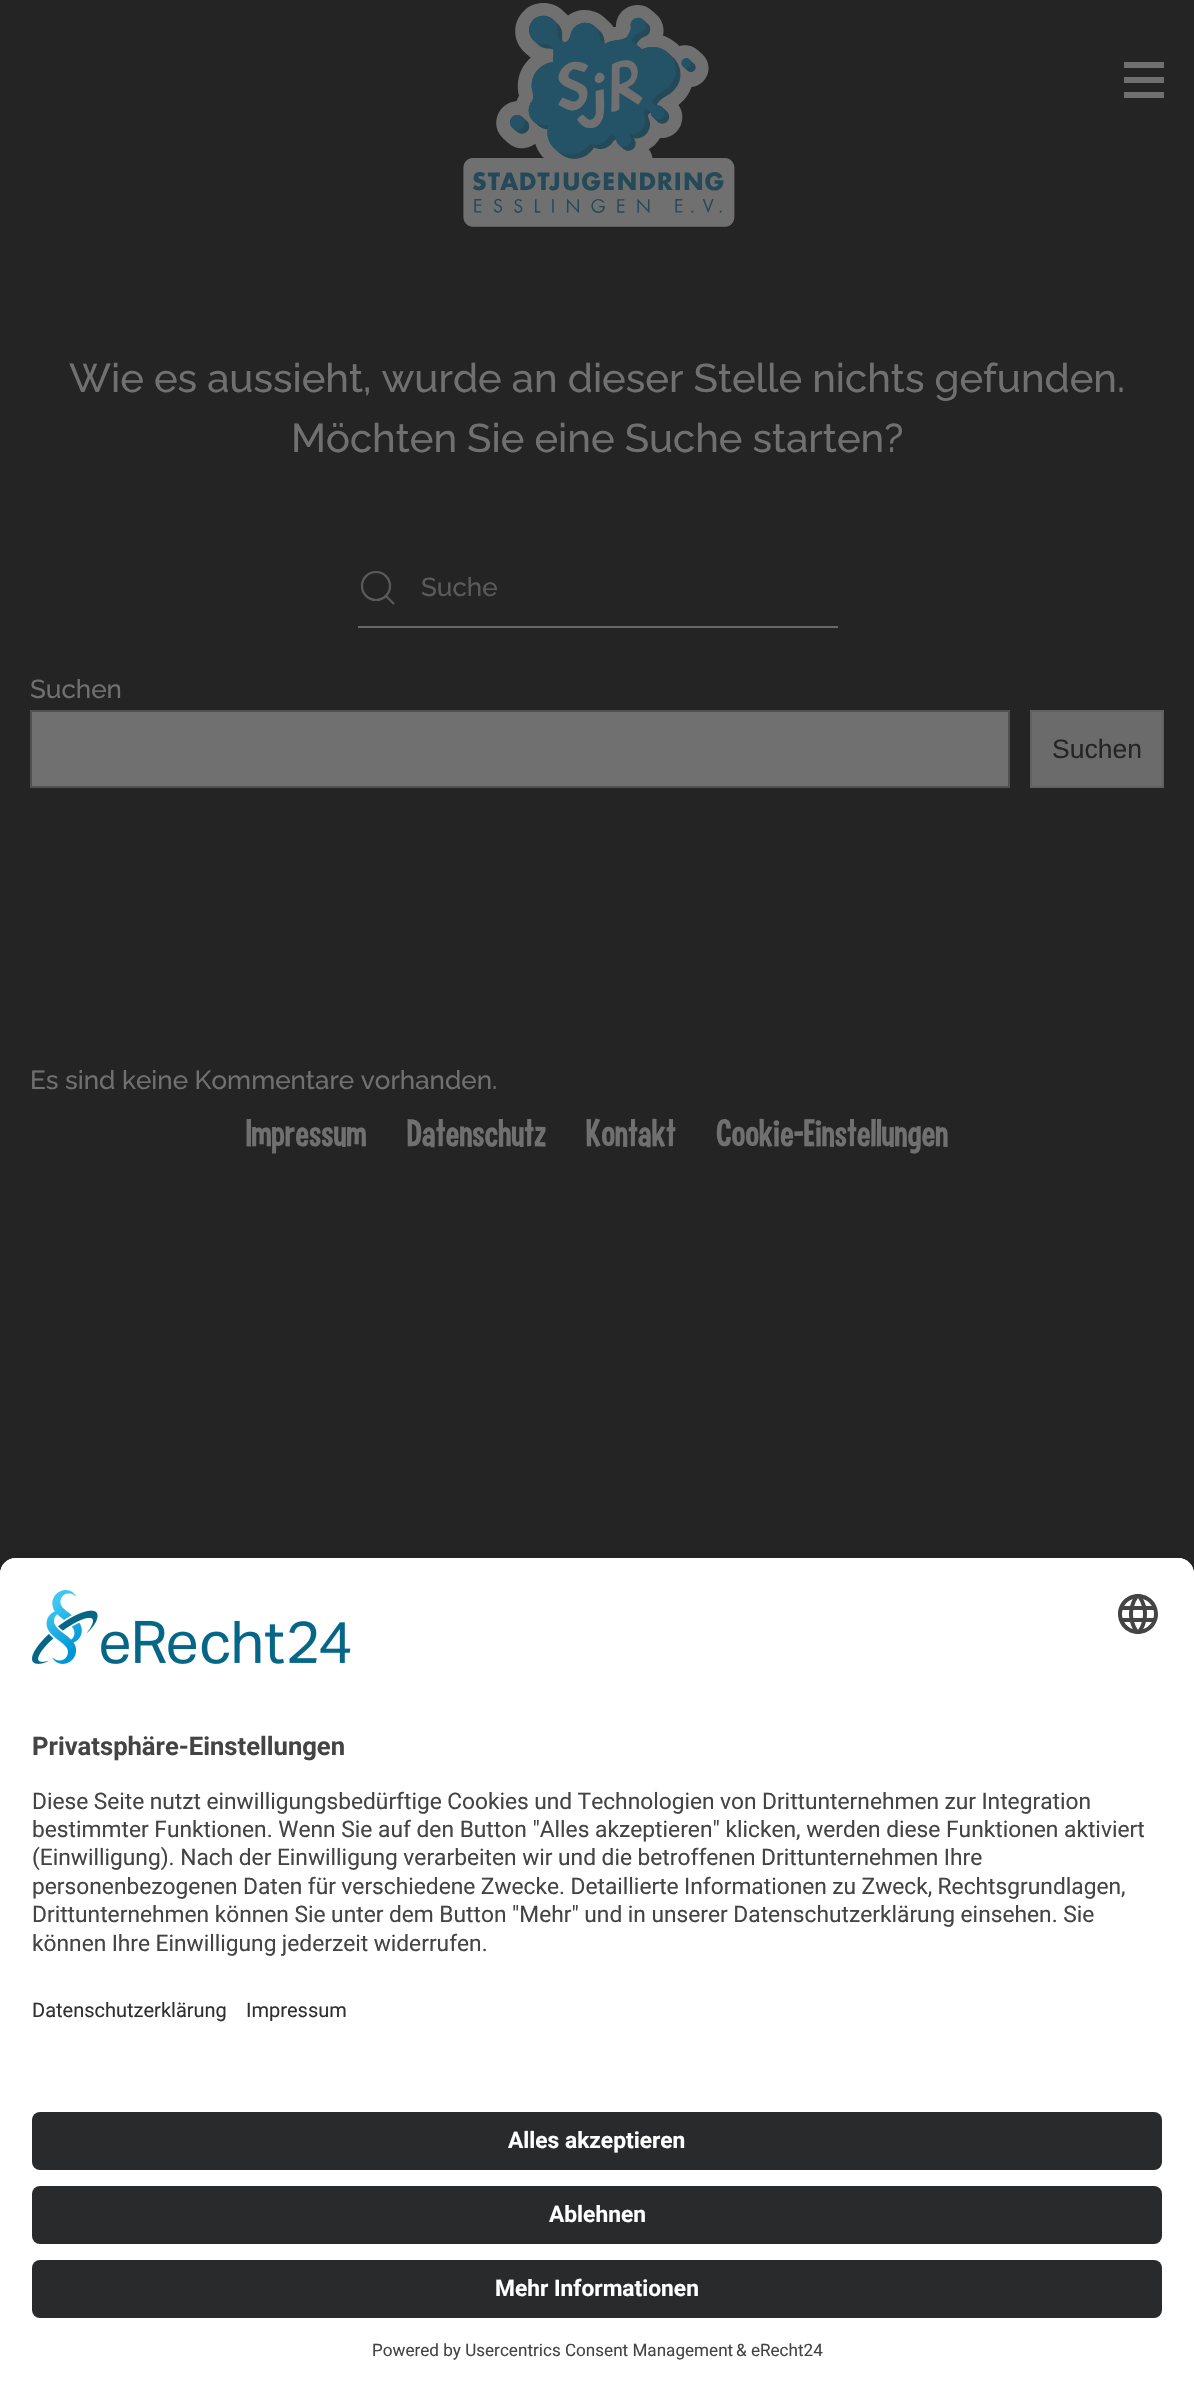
void draw(SkCanvas* canvas) {
	SkPaint paint;
	paint.setAntiAlias(true);
	auto spacedText = [&](const char* s, float x, float y, const SkFont& font, const SkPaint& ink, float letter, float word) {
		std::vector<SkGlyphID> glyphs(font.countText(s, strlen(s), SkTextEncoding::kUTF8));
		std::vector<float> xs(glyphs.size());
		font.textToGlyphs(s, strlen(s), SkTextEncoding::kUTF8, glyphs);
		font.getXPos(glyphs, xs, x);
		float extra = 0;
		for (size_t i = 0; i < glyphs.size(); i++) {
			xs[i] += extra;
			extra += letter + word * (glyphs[i] == font.unicharToGlyph(' '));
		}
		canvas->drawTextBlob(SkTextBlob::MakeFromPosHGlyphs(glyphs, xs, y, font), 0, 0, ink);
	};
	auto svgPath = [&](const char* data, bool evenOdd = false) {
		SkPath result = *SkParsePath::FromSVGString(data);
		if (evenOdd) result.setFillType(SkPathFillType::kEvenOdd);
		return result;
	};
	canvas->clear(0xff242424);
	canvas->drawImageRect(SkImages::DeferredFromEncodedData(SkData::MakeFromFileName("img1.png")), SkRect::MakeXYWH(463, 3, 272, 224), SkSamplingOptions());
	paint.setColor(0xff707070);
	canvas->drawRect(SkRect::MakeXYWH(1124, 62, 40, 6), paint);
	canvas->drawRect(SkRect::MakeXYWH(1124, 77, 40, 6), paint);
	canvas->drawRect(SkRect::MakeXYWH(1124, 92, 40, 6), paint);
	SkFont f1(fontMgr->matchFamilyStyle("Raleway", SkFontStyle(100, SkFontStyle::kNormal_Width, SkFontStyle::kUpright_Slant)), 40);
	f1.setSubpixel(true);
	canvas->drawString("Wie es aussieht, wurde an dieser Stelle nichts gefunden.", 69, 392, f1, paint);
	canvas->drawString("Möchten Sie eine Suche starten?", 291, 452, f1, paint);
	paint.setStroke(true);
	paint.setStrokeWidth(2.2);
	paint.setColor(0xff5a5a5c);
	canvas->drawCircle(376, 586, 14, paint);
	canvas->drawPath(svgPath("M386 596L394 604Z"), paint);
	paint.setStroke(false);
	paint.setColor(0xff686869);
	canvas->drawRect(SkRect::MakeXYWH(358, 626, 480, 2), paint);
	SkFont f2(fontMgr->matchFamilyStyle("Raleway", SkFontStyle(100, SkFontStyle::kNormal_Width, SkFontStyle::kUpright_Slant)), 26);
	f2.setSubpixel(true);
	paint.setColor(0xff5a5a5c);
	canvas->drawString("Suche", 421, 596, f2, paint);
	paint.setColor(0xff707070);
	canvas->drawString("Suchen", 30, 698, f2, paint);
	canvas->drawRect(SkRect::MakeXYWH(31, 711, 978, 76), paint);
	paint.setStroke(true);
	paint.setStrokeWidth(2);
	paint.setColor(0xff505050);
	canvas->drawRect(SkRect::MakeXYWH(31, 711, 978, 76), paint);
	paint.setStroke(false);
	paint.setColor(0xff6b6b6b);
	canvas->drawRect(SkRect::MakeXYWH(1031, 711, 132, 76), paint);
	paint.setStroke(true);
	paint.setColor(0xff616161);
	canvas->drawRect(SkRect::MakeXYWH(1031, 711, 132, 76), paint);
	SkFont f3(fontMgr->matchFamilyStyle("Liberation Sans", SkFontStyle::Normal()), 26.5);
	f3.setSubpixel(true);
	paint.setStroke(false);
	paint.setColor(0xff242424);
	canvas->drawString("Suchen", 1052, 758, f3, paint);
	paint.setColor(0xff707070);
	canvas->drawString("Es sind keine Kommentare vorhanden.", 30, 1089, f2, paint);
	SkFont f4(fontMgr->matchFamilyStyle("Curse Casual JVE", SkFontStyle::Normal()), 42);
	f4.setSubpixel(true);
	canvas->drawString("Impressum", 246, 1146, f4, paint);
	canvas->drawString("Datenschutz", 407, 1146, f4, paint);
	canvas->drawString("Kontakt", 586, 1146, f4, paint);
	canvas->drawString("Cookie-Einstellungen", 716, 1146, f4, paint);
	paint.setColor(0xffffffff);
	canvas->drawPath(svgPath("M16 1558H1178C1187 1558 1194 1565 1194 1574V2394H0V1574C0 1565 7 1558 16 1558Z"), paint);
	canvas->drawPath(svgPath("M16 1558H1178C1187 1558 1194 1565 1194 1574V2088H0V1574C0 1565 7 1558 16 1558Z"), paint);
	canvas->drawImageRect(SkImages::DeferredFromEncodedData(SkData::MakeFromFileName("img2.png")), SkRect::MakeXYWH(32, 1590, 319, 74), SkSamplingOptions());
	canvas->drawImageRect(SkImages::DeferredFromEncodedData(SkData::MakeFromFileName("img3.png")), SkRect::MakeXYWH(1118, 1594, 40, 40), SkSamplingOptions());
	SkFont f5(fontMgr->matchFamilyStyle("Roboto", SkFontStyle::Bold()), 25.6);
	f5.setSubpixel(true);
	paint.setColor(0xff444444);
	canvas->drawString("Privatsphäre-Einstellungen", 32, 1755, f5, paint);
	SkFont f6(fontMgr->matchFamilyStyle("Roboto", SkFontStyle::Normal()), 22.75);
	f6.setSubpixel(true);
	spacedText("Diese Seite nutzt einwilligungsbedürftige Cookies und Technologien von Drittunternehmen zur Integration", 32, 1809, f6, paint, 0, -0.25);
	canvas->drawString("bestimmter Funktionen. Wenn Sie auf den Button \"Alles akzeptieren\" klicken, werden diese Funktionen aktiviert", 32, 1837, f6, paint);
	spacedText("(Einwilligung). Nach der Einwilligung verarbeiten wir und die betroffenen Drittunternehmen Ihre", 32, 1865, f6, paint, 0, -0.1);
	spacedText("personenbezogenen Daten für verschiedene Zwecke. Detaillierte Informationen zu Zweck, Rechtsgrundlagen,", 32, 1894, f6, paint, 0, -0.25);
	spacedText("Drittunternehmen können Sie unter dem Button \"Mehr\" und in unserer Datenschutzerklärung einsehen. Sie", 32, 1922, f6, paint, 0, -0.1);
	spacedText("können Ihre Einwilligung jederzeit widerrufen.", 32, 1951, f6, paint, 0, -0.25);
	SkFont f7(fontMgr->matchFamilyStyle("Roboto", SkFontStyle::Normal()), 20);
	f7.setSubpixel(true);
	paint.setColor(0xff303030);
	canvas->drawString("Datenschutzerklärung", 32, 2017, f7, paint);
	canvas->drawString("Impressum", 246, 2017, f7, paint);
	paint.setColor(0xff292a2b);
	canvas->drawRoundRect(SkRect::MakeXYWH(32, 2112, 1130, 58), 8, 8, paint);
	SkFont f8(fontMgr->matchFamilyStyle("Roboto", SkFontStyle::Bold()), 22.75);
	f8.setSubpixel(true);
	paint.setColor(0xffffffff);
	canvas->drawString("Alles akzeptieren", 508, 2148, f8, paint);
	paint.setColor(0xff292a2b);
	canvas->drawRoundRect(SkRect::MakeXYWH(32, 2186, 1130, 58), 8, 8, paint);
	paint.setColor(0xffffffff);
	canvas->drawString("Ablehnen", 549, 2222, f8, paint);
	paint.setColor(0xff292a2b);
	canvas->drawRoundRect(SkRect::MakeXYWH(32, 2260, 1130, 58), 8, 8, paint);
	paint.setColor(0xffffffff);
	canvas->drawString("Mehr Informationen", 495, 2296, f8, paint);
	SkFont f9(fontMgr->matchFamilyStyle("Roboto", SkFontStyle::Normal()), 17.1);
	f9.setSubpixel(true);
	paint.setColor(0xff444444);
	canvas->drawString("Powered by Usercentrics Consent Management", 372, 2356, f9, paint);
	canvas->drawString("& eRecht24", 736, 2356, f9, paint);
}
